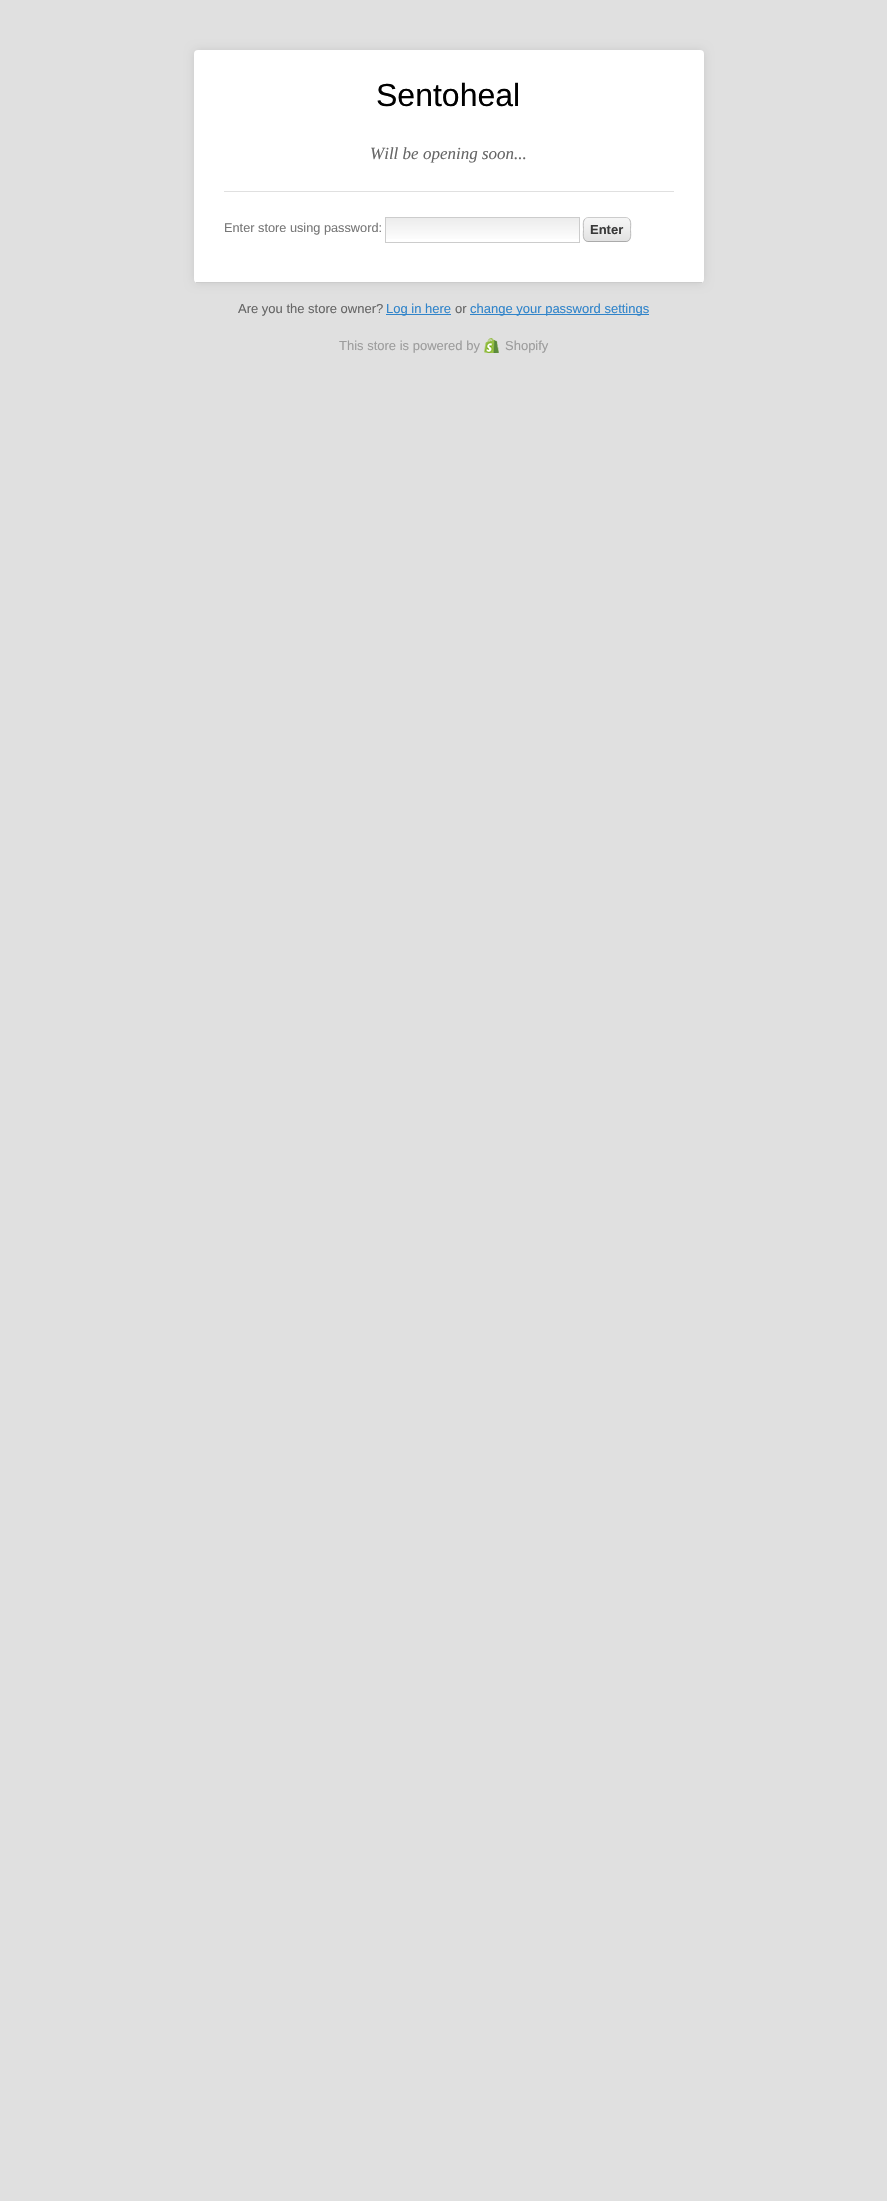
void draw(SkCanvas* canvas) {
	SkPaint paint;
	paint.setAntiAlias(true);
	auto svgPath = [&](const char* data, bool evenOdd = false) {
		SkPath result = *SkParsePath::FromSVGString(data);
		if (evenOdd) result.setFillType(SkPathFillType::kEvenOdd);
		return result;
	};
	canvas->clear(0xffe0e0e0);
	paint.setColor(0x1a000000);
	paint.setMaskFilter(SkMaskFilter::MakeBlur(kNormal_SkBlurStyle, 5));
	canvas->drawRoundRect(SkRect::MakeXYWH(194, 50, 510, 233), 4, 4, paint);
	paint.setMaskFilter(nullptr);
	paint.setColor(0xffffffff);
	canvas->drawRoundRect(SkRect::MakeXYWH(194, 50, 510, 233), 4, 4, paint);
	paint.setColor(0xffcccccc);
	canvas->drawRect(SkRect::MakeXYWH(196, 282, 506, 1), paint);
	SkFont f1(fontMgr->matchFamilyStyle("Liberation Sans", SkFontStyle::Normal()), 32);
	f1.setSubpixel(true);
	paint.setColor(0xff000000);
	canvas->drawString("Sentoheal", 376, 106, f1, paint);
	SkFont f2(fontMgr->matchFamilyStyle("Liberation Serif", SkFontStyle::Italic()), 17);
	f2.setSubpixel(true);
	paint.setColor(0xff666666);
	canvas->drawString("Will be opening soon...", 370, 159, f2, paint);
	paint.setColor(0xffe0e0e0);
	canvas->drawRect(SkRect::MakeXYWH(224, 191, 450, 1), paint);
	SkFont f3(fontMgr->matchFamilyStyle("Liberation Sans", SkFontStyle::Normal()), 12.75);
	f3.setSubpixel(true);
	paint.setColor(0xff777777);
	canvas->drawString("Enter store using password:", 224, 232, f3, paint);
	{
		const SkColor colors[] = {0xffececec, 0xffffffff};
		const float stops[] = {0, 1};
		const SkPoint ends[] = {{386, 218}, {386, 242}};
		paint.setShader(SkGradientShader::MakeLinear(ends, colors, stops, 2, SkTileMode::kClamp));
		paint.setAlpha(255);
	}
	canvas->drawRect(SkRect::MakeXYWH(386, 218, 193, 21), paint);
	paint.setStroke(true);
	paint.setStrokeWidth(1);
	paint.setShader(nullptr);
	paint.setColor(0xffcccccc);
	canvas->drawRect(SkRect::MakeXYWH(385.5, 217.5, 194, 25), paint);
	canvas->drawImageRect(SkImages::DeferredFromEncodedData(SkData::MakeFromFileName("img1.png")), SkRect::MakeXYWH(583, 218, 48, 24), SkSamplingOptions());
	canvas->drawPath(svgPath("M585 219C585.5 218 587 217.5 588 217.5H626C627 217.5 628.5 218 629 219"), paint);
	paint.setColor(0xffbbbbbb);
	canvas->drawPath(svgPath("M629 219C631.5 221 630.5 226.5 630.5 229.5C630.5 232.5 631.5 238 629 240"), paint);
	paint.setColor(0xffaaaaaa);
	canvas->drawPath(svgPath("M629 240C628.5 241 627 241.5 626 241.5H588C587 241.5 585.5 241 585 240"), paint);
	paint.setColor(0xffbbbbbb);
	canvas->drawPath(svgPath("M585 240C582.5 238 583.5 232.5 583.5 229.5C583.5 226.5 582.5 221 585 219"), paint);
	SkFont f4(fontMgr->matchFamilyStyle("Liberation Sans", SkFontStyle::Bold()), 13);
	f4.setSubpixel(true);
	paint.setStroke(false);
	paint.setColor(0xff3a3a3a);
	canvas->drawString("Enter", 590, 234, f4, paint);
	SkFont f5(fontMgr->matchFamilyStyle("Liberation Sans", SkFontStyle::Normal()), 13);
	f5.setSubpixel(true);
	paint.setColor(0xff666666);
	canvas->drawString("Are you the store owner?", 238, 313, f5, paint);
	paint.setColor(0xff3084ca);
	canvas->drawRect(SkRect::MakeXYWH(386, 314, 65, 1), paint);
	canvas->drawString("Log in here", 386, 313, f5, paint);
	paint.setColor(0xff666666);
	canvas->drawString("or", 455, 313, f5, paint);
	paint.setColor(0xff3084ca);
	canvas->drawRect(SkRect::MakeXYWH(470, 314, 179, 1), paint);
	canvas->drawString("change your password settings", 470, 313, f5, paint);
	paint.setColor(0xff9c9c9c);
	canvas->drawString("This store is powered by", 339, 350, f5, paint);
	canvas->drawImageRect(SkImages::DeferredFromEncodedData(SkData::MakeFromFileName("img2.png")), SkRect::MakeXYWH(484, 338, 15, 15), SkSamplingOptions());
	canvas->drawString("Shopify", 505, 350, f5, paint);
}
